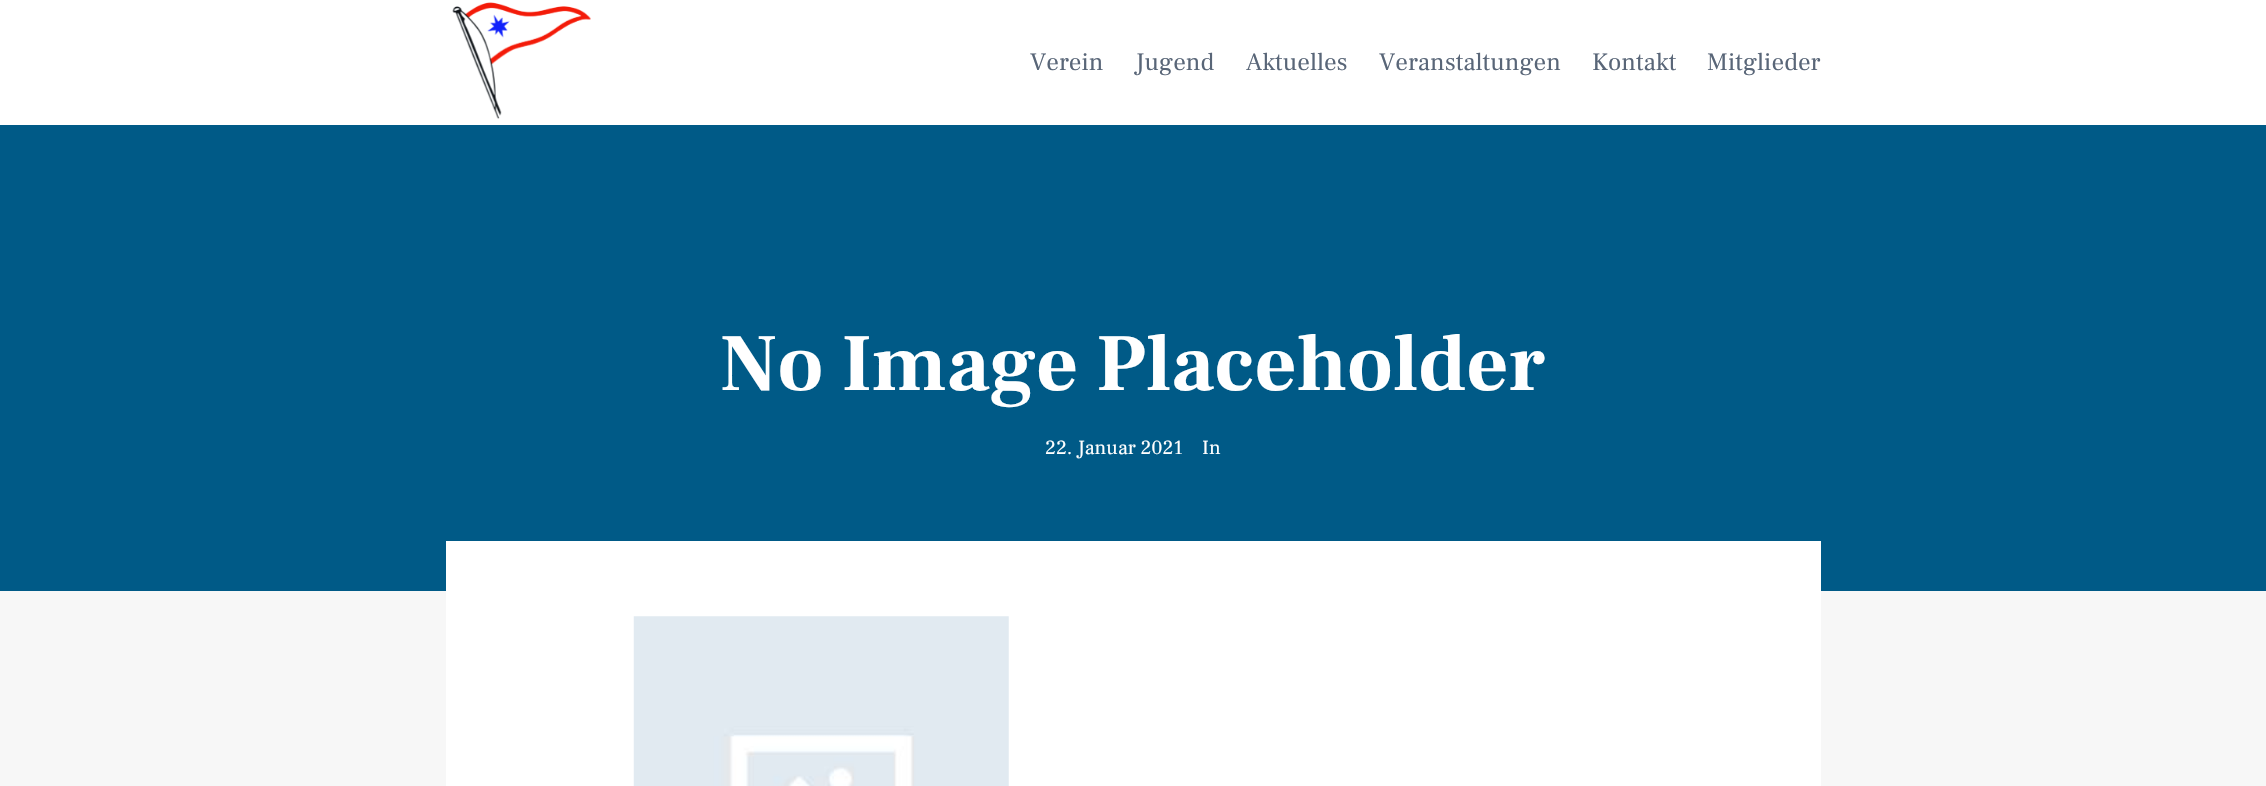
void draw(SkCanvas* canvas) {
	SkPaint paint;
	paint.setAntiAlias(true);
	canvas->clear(0xfff7f7f7);
	paint.setColor(0xffffffff);
	canvas->drawRect(SkRect::MakeXYWH(0, 0, 2266, 125), paint);
	canvas->drawImageRect(SkImages::DeferredFromEncodedData(SkData::MakeFromFileName("img1.png")), SkRect::MakeXYWH(452, 2, 139, 117), SkSamplingOptions());
	SkFont f1(fontMgr->matchFamilyStyle("Frank Ruhl Libre", SkFontStyle::Normal()), 25);
	f1.setSubpixel(true);
	paint.setColor(0xff596678);
	canvas->drawString("Verein", 1030, 70, f1, paint);
	canvas->drawString("Jugend", 1135, 70, f1, paint);
	canvas->drawString("Aktuelles", 1246, 70, f1, paint);
	canvas->drawString("Veranstaltungen", 1379, 70, f1, paint);
	canvas->drawString("Kontakt", 1592, 70, f1, paint);
	canvas->drawString("Mitglieder", 1707, 70, f1, paint);
	paint.setColor(0xff005a87);
	canvas->drawRect(SkRect::MakeXYWH(0, 125, 2266, 466), paint);
	SkFont f2(fontMgr->matchFamilyStyle("Frank Ruhl Libre", SkFontStyle::Bold()), 81.25);
	f2.setSubpixel(true);
	paint.setColor(0xffffffff);
	canvas->drawString("No Image Placeholder", 720, 390, f2, paint);
	SkFont f3(fontMgr->matchFamilyStyle("Frank Ruhl Libre", SkFontStyle::Normal()), 20);
	f3.setSubpixel(true);
	canvas->drawString("22. Januar 2021", 1045, 454, f3, paint);
	canvas->drawString("In", 1202, 454, f3, paint);
	canvas->drawRect(SkRect::MakeXYWH(446, 541, 1375, 245), paint);
	canvas->drawImageRect(SkImages::DeferredFromEncodedData(SkData::MakeFromFileName("img2.png")), SkRect::MakeXYWH(633, 616, 376, 170), SkSamplingOptions());
}
